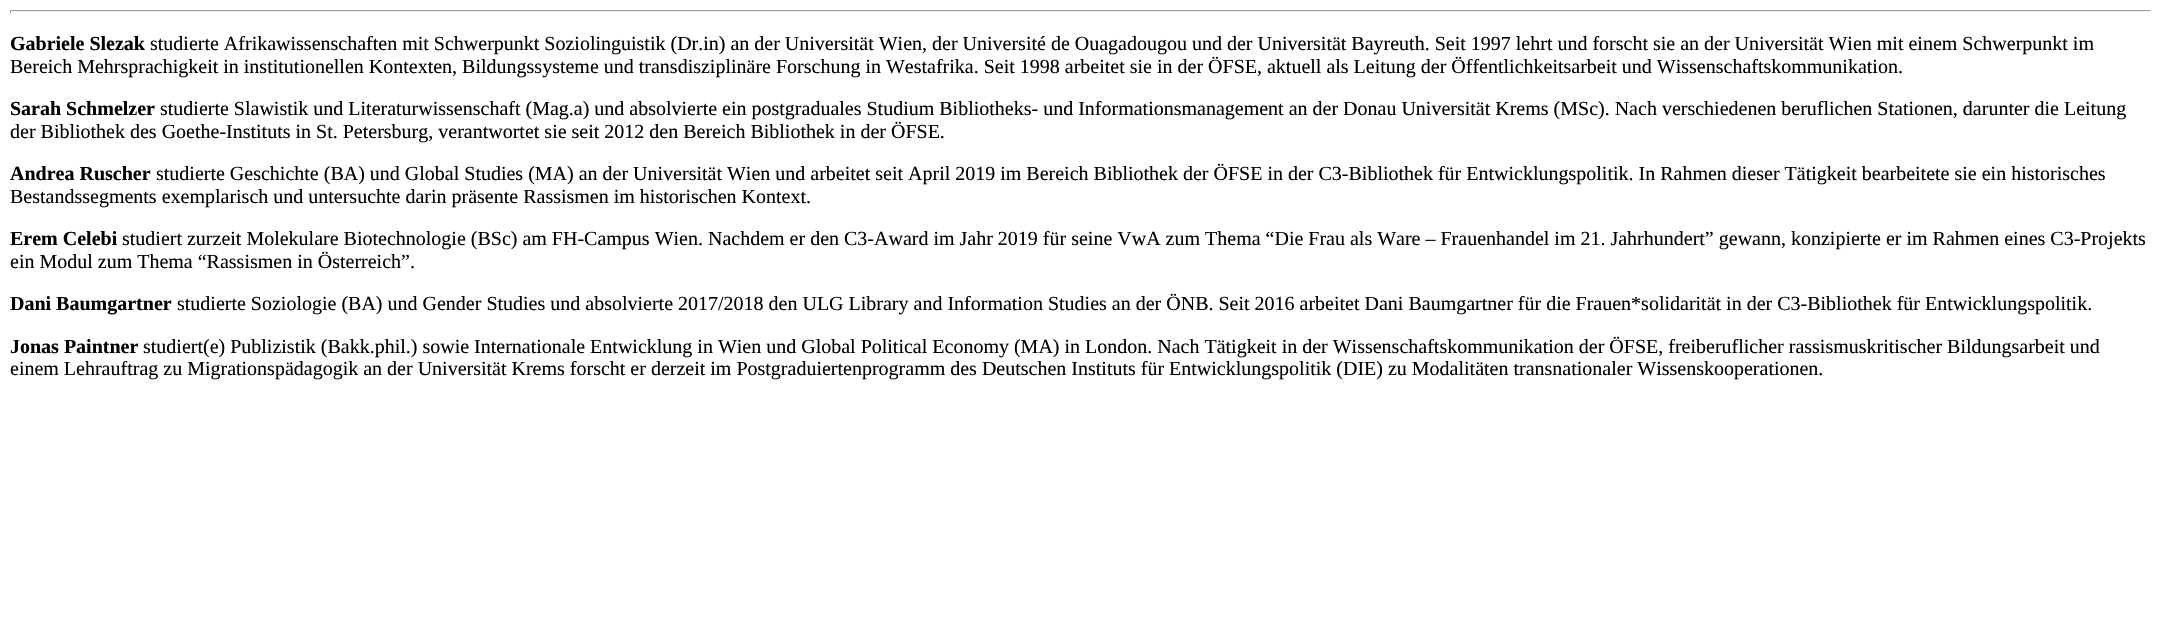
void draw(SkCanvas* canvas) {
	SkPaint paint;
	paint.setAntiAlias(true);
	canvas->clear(0xffffffff);
	paint.setColor(0xff9f9f9f);
	canvas->drawRect(SkRect::MakeXYWH(10, 10, 2141, 1), paint);
	paint.setColor(0xffeeeeee);
	canvas->drawRect(SkRect::MakeXYWH(2150, 10, 1, 3), paint);
	canvas->drawRect(SkRect::MakeXYWH(10, 11, 2141, 1), paint);
	paint.setColor(0xff9f9f9f);
	canvas->drawRect(SkRect::MakeXYWH(10, 10, 1, 3), paint);
	SkFont f1(fontMgr->matchFamilyStyle("Liberation Serif", SkFontStyle::Bold()), 20);
	f1.setSubpixel(true);
	paint.setColor(0xff000000);
	canvas->drawString("Gabriele Slezak", 10, 50, f1, paint);
	SkFont f2(fontMgr->matchFamilyStyle("Liberation Serif", SkFontStyle::Normal()), 20);
	f2.setSubpixel(true);
	canvas->drawString("studierte Afrikawissenschaften mit Schwerpunkt Soziolinguistik (Dr.in) an der Universität Wien, der Université de Ouagadougou und der Universität Bayreuth. Seit 1997 lehrt und forscht sie an der Universität Wien mit einem Schwerpunkt im", 150, 50, f2, paint);
	canvas->drawString("Bereich Mehrsprachigkeit in institutionellen Kontexten, Bildungssysteme und transdisziplinäre Forschung in Westafrika. Seit 1998 arbeitet sie in der ÖFSE, aktuell als Leitung der Öffentlichkeitsarbeit und Wissenschaftskommunikation.", 10, 73, f2, paint);
	canvas->drawString("Sarah Schmelzer", 10, 115, f1, paint);
	canvas->drawString("studierte Slawistik und Literaturwissenschaft (Mag.a) und absolvierte ein postgraduales Studium Bibliotheks- und Informationsmanagement an der Donau Universität Krems (MSc). Nach verschiedenen beruflichen Stationen, darunter die Leitung", 160, 115, f2, paint);
	canvas->drawString("der Bibliothek des Goethe-Instituts in St. Petersburg, verantwortet sie seit 2012 den Bereich Bibliothek in der ÖFSE.", 10, 138, f2, paint);
	canvas->drawString("Andrea Ruscher", 10, 180, f1, paint);
	canvas->drawString("studierte Geschichte (BA) und Global Studies (MA) an der Universität Wien und arbeitet seit April 2019 im Bereich Bibliothek der ÖFSE in der C3-Bibliothek für Entwicklungspolitik. In Rahmen dieser Tätigkeit bearbeitete sie ein historisches", 156, 180, f2, paint);
	canvas->drawString("Bestandssegments exemplarisch und untersuchte darin präsente Rassismen im historischen Kontext.", 10, 203, f2, paint);
	canvas->drawString("Erem Celebi", 10, 245, f1, paint);
	canvas->drawString("studiert zurzeit Molekulare Biotechnologie (BSc) am FH-Campus Wien. Nachdem er den C3-Award im Jahr 2019 für seine VwA zum Thema “Die Frau als Ware – Frauenhandel im 21. Jahrhundert” gewann, konzipierte er im Rahmen eines C3-Projekts", 122, 245, f2, paint);
	canvas->drawString("ein Modul zum Thema “Rassismen in Österreich”.", 10, 268, f2, paint);
	canvas->drawString("Dani Baumgartner", 10, 310, f1, paint);
	canvas->drawString("studierte Soziologie (BA) und Gender Studies und absolvierte 2017/2018 den ULG Library and Information Studies an der ÖNB. Seit 2016 arbeitet Dani Baumgartner für die Frauen*solidarität in der C3-Bibliothek für Entwicklungspolitik.", 177, 310, f2, paint);
	canvas->drawString("Jonas Paintner", 10, 353, f1, paint);
	canvas->drawString("studiert(e) Publizistik (Bakk.phil.) sowie Internationale Entwicklung in Wien und Global Political Economy (MA) in London. Nach Tätigkeit in der Wissenschaftskommunikation der ÖFSE, freiberuflicher rassismuskritischer Bildungsarbeit und", 143, 353, f2, paint);
	canvas->drawString("einem Lehrauftrag zu Migrationspädagogik an der Universität Krems forscht er derzeit im Postgraduiertenprogramm des Deutschen Instituts für Entwicklungspolitik (DIE) zu Modalitäten transnationaler Wissenskooperationen.", 10, 375, f2, paint);
}
